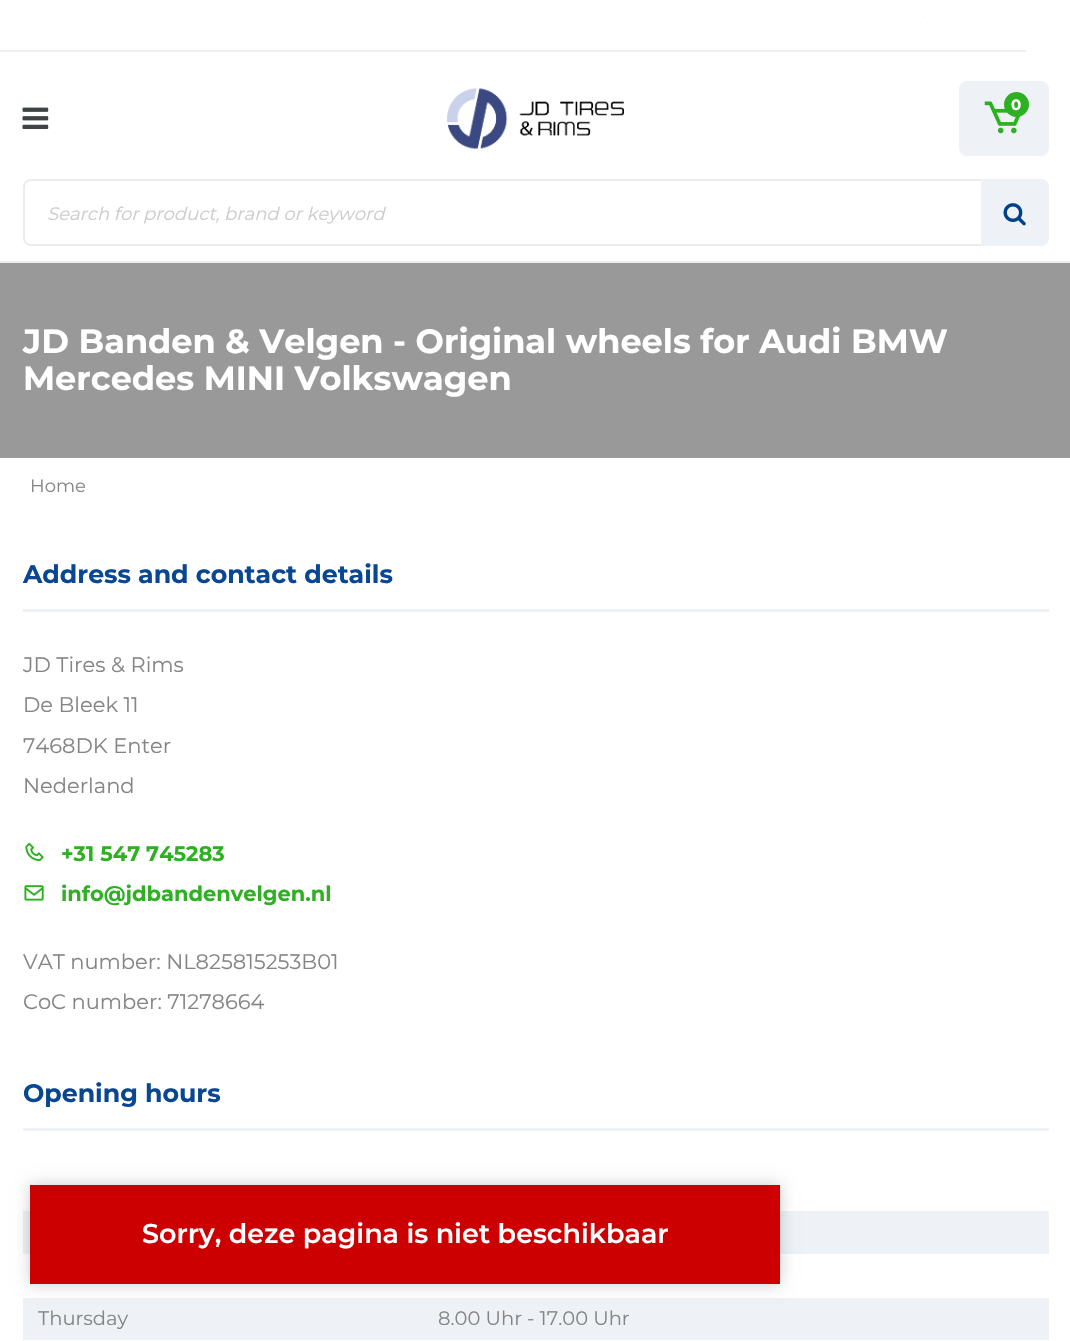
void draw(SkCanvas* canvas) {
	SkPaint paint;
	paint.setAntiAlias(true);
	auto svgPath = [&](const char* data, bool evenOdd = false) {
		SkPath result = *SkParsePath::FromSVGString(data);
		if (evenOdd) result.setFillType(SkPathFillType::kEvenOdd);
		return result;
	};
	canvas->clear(0xffffffff);
	paint.setColor(0xffececec);
	canvas->drawRect(SkRect::MakeXYWH(0, 261, 1070, 2), paint);
	paint.setColor(0xffeeeeee);
	canvas->drawRect(SkRect::MakeXYWH(0, 50, 1026, 2), paint);
	canvas->drawImageRect(SkImages::DeferredFromEncodedData(SkData::MakeFromFileName("img1.png")), SkRect::MakeXYWH(902, 17, 48, 12), SkSamplingOptions());
	canvas->drawImageRect(SkImages::DeferredFromEncodedData(SkData::MakeFromFileName("img2.png")), SkRect::MakeXYWH(447, 88, 177, 61), SkSamplingOptions());
	paint.setColor(0xffeef1f5);
	canvas->drawRoundRect(SkRect::MakeXYWH(959, 81, 90, 75), 8, 8, paint);
	canvas->drawImageRect(SkImages::DeferredFromEncodedData(SkData::MakeFromFileName("img3.png")), SkRect::MakeXYWH(984, 101, 37, 33), SkSamplingOptions());
	paint.setColor(0xff2db122);
	canvas->drawCircle(1016.5, 104.5, 12.5, paint);
	SkFont f1(fontMgr->matchFamilyStyle("Montserrat", SkFontStyle::Bold()), 15);
	f1.setSubpixel(true);
	paint.setColor(0xffffffff);
	canvas->drawString("0", 1011, 110, f1, paint);
	canvas->drawImageRect(SkImages::DeferredFromEncodedData(SkData::MakeFromFileName("img4.png")), SkRect::MakeXYWH(22, 107, 27, 22), SkSamplingOptions());
	paint.setStroke(true);
	paint.setStrokeWidth(2);
	paint.setColor(0xffececec);
	canvas->drawPath(svgPath("M31 180H985V245H31C27 245 24 242 24 238V187C24 183 27 180 31 180Z"), paint);
	SkFont f2(fontMgr->matchFamilyStyle("Montserrat", SkFontStyle::Italic()), 18);
	f2.setSubpixel(true);
	paint.setStroke(false);
	paint.setColor(0xffcccccc);
	canvas->drawString("Search for product, brand or keyword", 47, 220, f2, paint);
	paint.setColor(0xffeef1f5);
	canvas->drawPath(svgPath("M981 179H1041C1045.5 179 1049 182.5 1049 187V238C1049 242.5 1045.5 246 1041 246H981Z"), paint);
	canvas->drawImageRect(SkImages::DeferredFromEncodedData(SkData::MakeFromFileName("img5.png")), SkRect::MakeXYWH(1003, 203, 23, 23), SkSamplingOptions());
	paint.setColor(0xff999999);
	canvas->drawRect(SkRect::MakeXYWH(0, 263, 1070, 195), paint);
	SkFont f3(fontMgr->matchFamilyStyle("Montserrat", SkFontStyle::Bold()), 33.6);
	f3.setSubpixel(true);
	paint.setColor(0xffffffff);
	canvas->drawString("JD Banden & Velgen - Original wheels for Audi BMW", 23, 353, f3, paint);
	canvas->drawString("Mercedes MINI Volkswagen", 23, 390, f3, paint);
	SkFont f4(fontMgr->matchFamilyStyle("Montserrat", SkFontStyle::Normal()), 18);
	f4.setSubpixel(true);
	paint.setColor(0xff858585);
	canvas->drawString("Home", 30, 492, f4, paint);
	paint.setColor(0xffeef1f5);
	canvas->drawRect(SkRect::MakeXYWH(23, 609, 1026, 3), paint);
	SkFont f5(fontMgr->matchFamilyStyle("Montserrat", SkFontStyle::Bold()), 25.25);
	f5.setSubpixel(true);
	paint.setColor(0xff094792);
	canvas->drawString("Address and contact details", 23, 583, f5, paint);
	SkFont f6(fontMgr->matchFamilyStyle("Montserrat", SkFontStyle::Normal()), 21);
	f6.setSubpixel(true);
	paint.setColor(0xff858585);
	canvas->drawString("JD Tires & Rims", 23, 672, f6, paint);
	canvas->drawString("De Bleek 11", 23, 712, f6, paint);
	canvas->drawString("7468DK Enter", 23, 753, f6, paint);
	canvas->drawString("Nederland", 23, 793, f6, paint);
	canvas->drawImageRect(SkImages::DeferredFromEncodedData(SkData::MakeFromFileName("img6.png")), SkRect::MakeXYWH(25, 842, 19, 20), SkSamplingOptions());
	SkFont f7(fontMgr->matchFamilyStyle("Montserrat", SkFontStyle::Bold()), 21);
	f7.setSubpixel(true);
	paint.setColor(0xff2db122);
	canvas->drawString("+31 547 745283", 61, 861, f7, paint);
	canvas->drawImageRect(SkImages::DeferredFromEncodedData(SkData::MakeFromFileName("img7.png")), SkRect::MakeXYWH(24, 885, 20, 16), SkSamplingOptions());
	canvas->drawString("info@jdbandenvelgen.nl", 61, 901, f7, paint);
	paint.setColor(0xff858585);
	canvas->drawString("VAT number: NL825815253B01", 23, 969, f6, paint);
	canvas->drawString("CoC number: 71278664", 23, 1009, f6, paint);
	paint.setColor(0xffeef1f5);
	canvas->drawRect(SkRect::MakeXYWH(23, 1128, 1026, 3), paint);
	paint.setColor(0xff094792);
	canvas->drawString("Opening hours", 23, 1102, f5, paint);
	paint.setColor(0xffeef1f5);
	canvas->drawRect(SkRect::MakeXYWH(23, 1211, 7, 43), paint);
	canvas->drawRect(SkRect::MakeXYWH(780, 1211, 269, 43), paint);
	canvas->drawRect(SkRect::MakeXYWH(23, 1298, 1026, 42), paint);
	SkFont f8(fontMgr->matchFamilyStyle("Montserrat", SkFontStyle::Normal()), 19.5);
	f8.setSubpixel(true);
	paint.setColor(0xff858585);
	canvas->drawString("Thursday", 38, 1325, f8, paint);
	canvas->drawString("8.00 Uhr - 17.00 Uhr", 438, 1325, f8, paint);
	paint.setColor(0x33000000);
	paint.setMaskFilter(SkMaskFilter::MakeBlur(kNormal_SkBlurStyle, 7.5));
	canvas->drawRect(SkRect::MakeXYWH(30, 1185, 750, 99), paint);
	paint.setMaskFilter(nullptr);
	paint.setColor(0xffcc0000);
	canvas->drawRect(SkRect::MakeXYWH(30, 1185, 750, 99), paint);
	SkFont f9(fontMgr->matchFamilyStyle("Montserrat", SkFontStyle(600, SkFontStyle::kNormal_Width, SkFontStyle::kUpright_Slant)), 27);
	f9.setSubpixel(true);
	paint.setColor(0xffffffff);
	canvas->drawString("Sorry, deze pagina is niet beschikbaar", 142, 1243, f9, paint);
}
